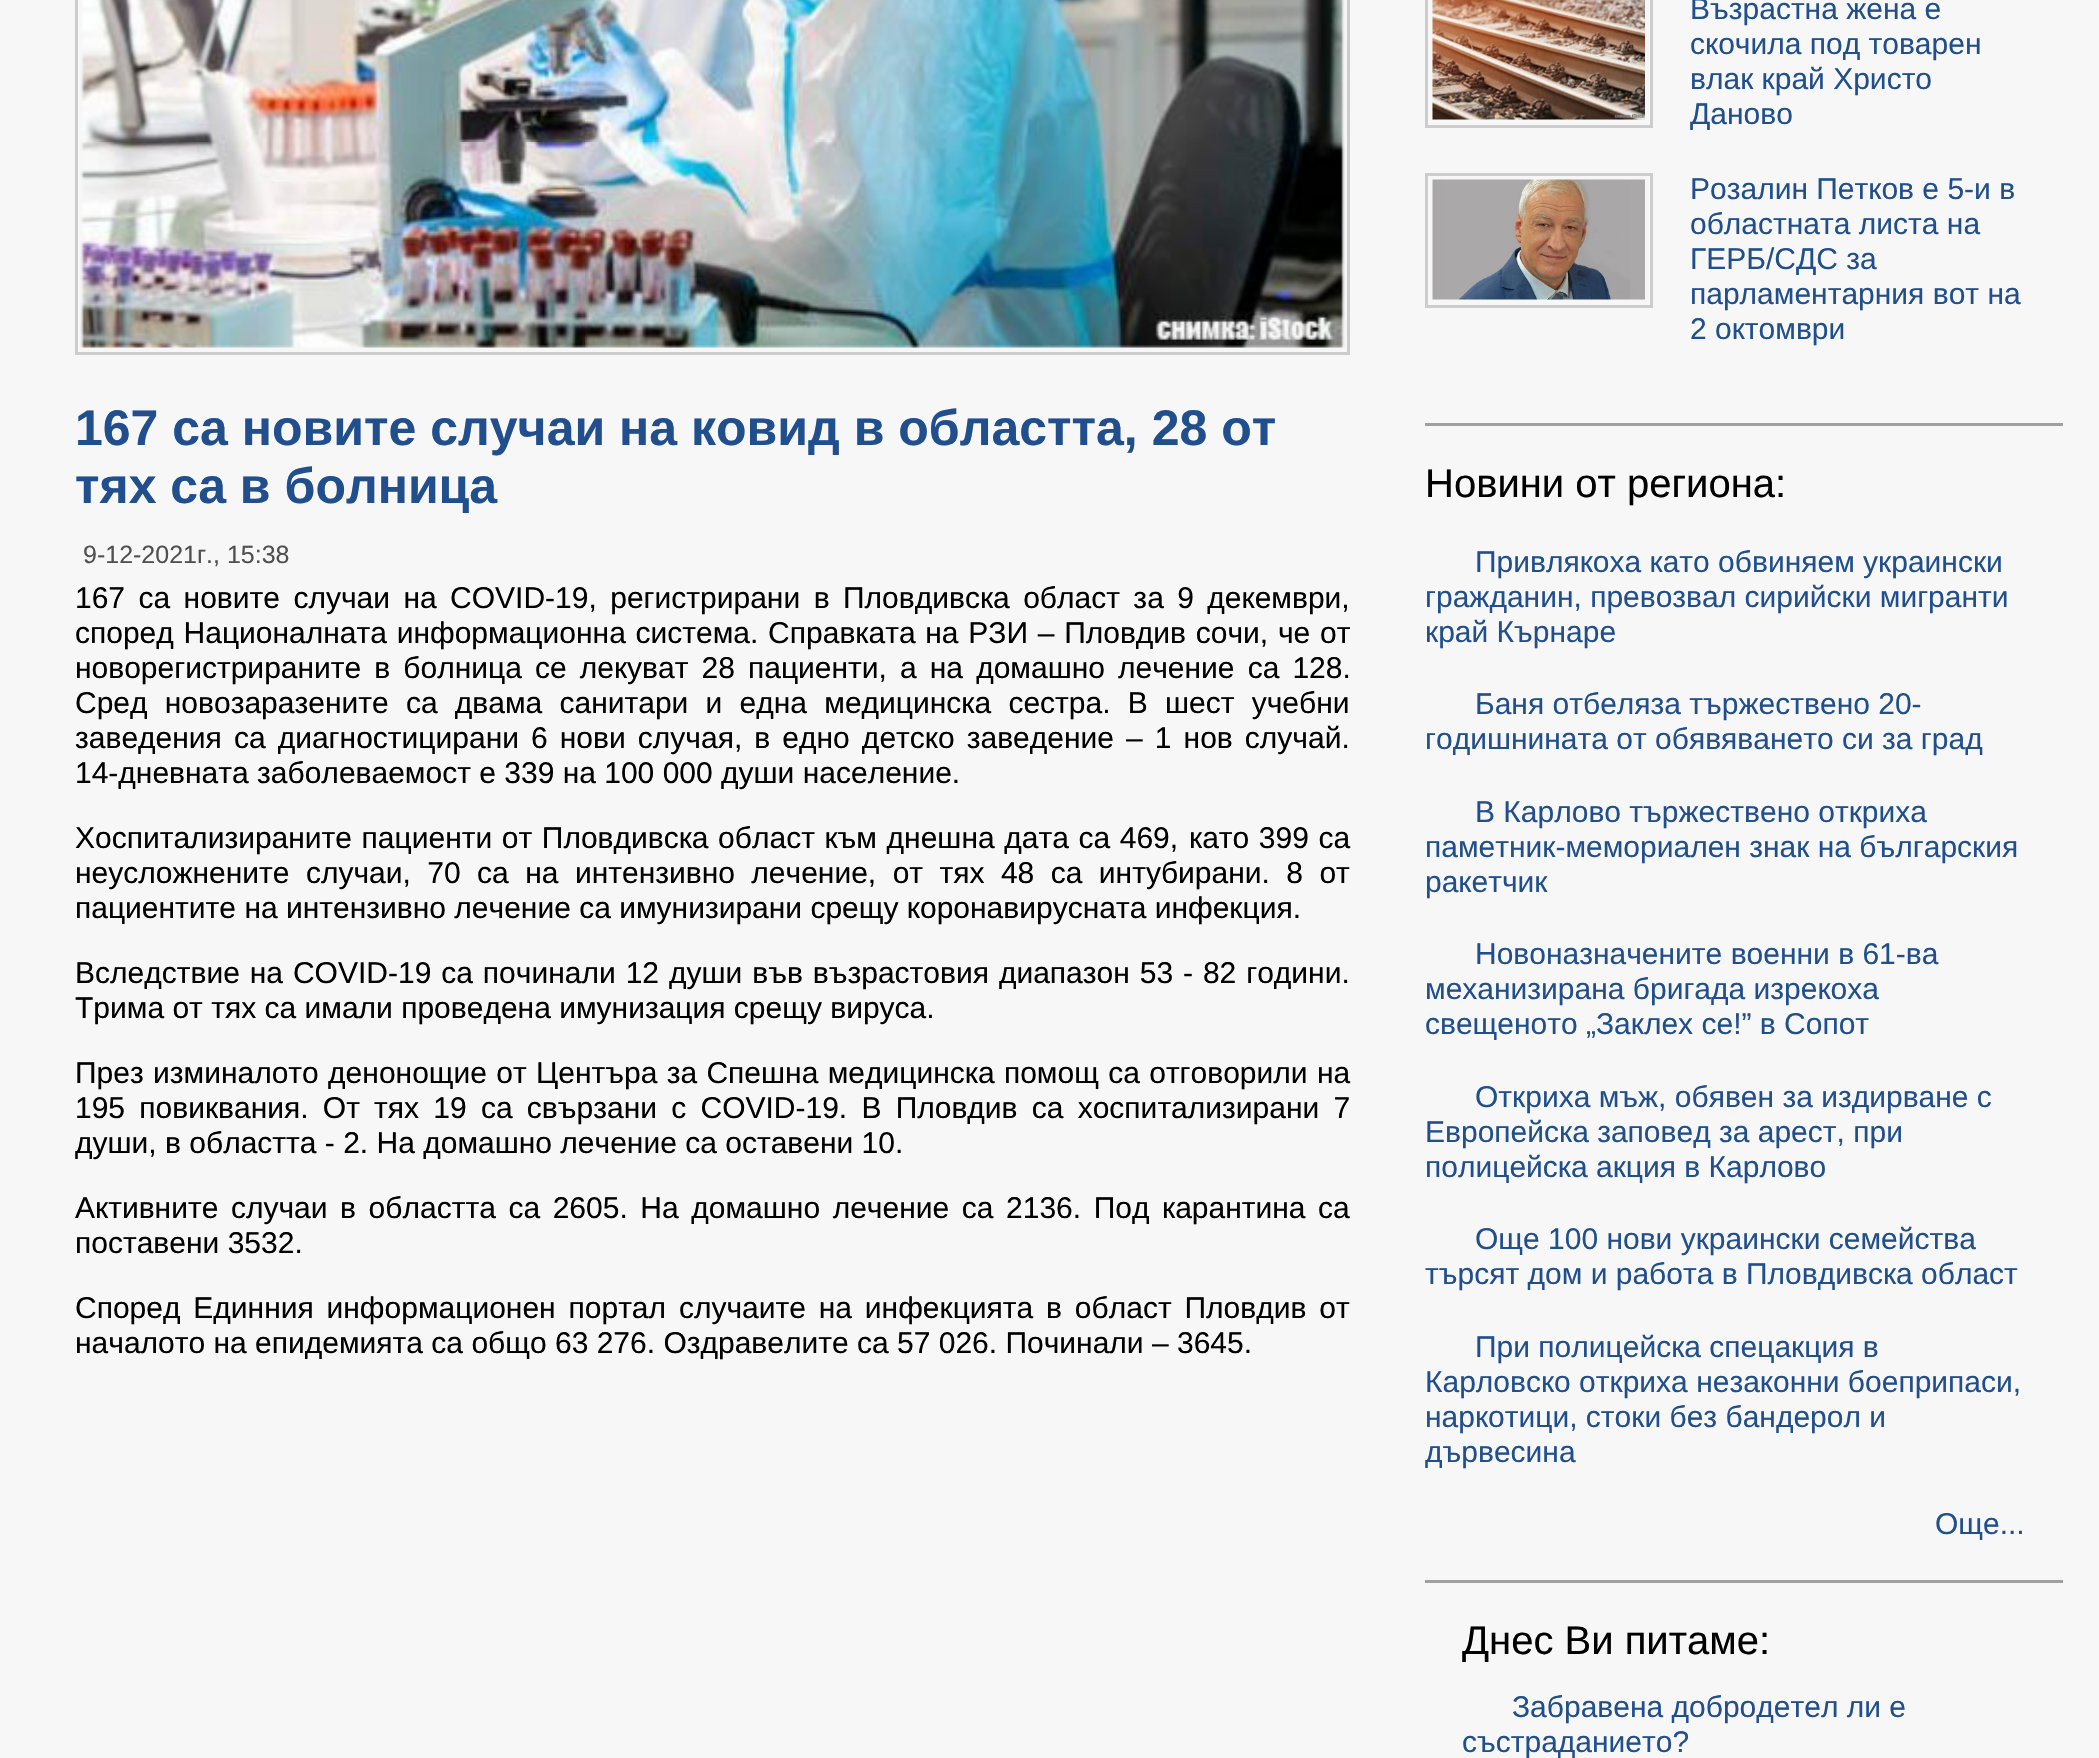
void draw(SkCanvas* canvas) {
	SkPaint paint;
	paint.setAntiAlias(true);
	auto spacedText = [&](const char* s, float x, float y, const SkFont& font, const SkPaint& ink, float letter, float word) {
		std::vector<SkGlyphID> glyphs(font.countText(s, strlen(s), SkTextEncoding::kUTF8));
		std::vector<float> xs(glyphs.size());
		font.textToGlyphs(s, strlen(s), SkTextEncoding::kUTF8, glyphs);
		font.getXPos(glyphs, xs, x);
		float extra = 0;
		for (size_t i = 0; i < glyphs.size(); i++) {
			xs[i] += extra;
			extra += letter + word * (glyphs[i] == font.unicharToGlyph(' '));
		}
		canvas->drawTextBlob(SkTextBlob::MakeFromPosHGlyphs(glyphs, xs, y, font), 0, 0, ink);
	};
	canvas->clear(0xfff7f7f7);
	paint.setStroke(true);
	paint.setStrokeWidth(3);
	paint.setColor(0xffcccccc);
	canvas->drawRect(SkRect::MakeXYWH(76.5, -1.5, 1272, 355), paint);
	canvas->drawImageRect(SkImages::DeferredFromEncodedData(SkData::MakeFromFileName("img1.png")), SkRect::MakeXYWH(80, 0, 1265, 348), SkSamplingOptions());
	SkFont f1(fontMgr->matchFamilyStyle("Liberation Sans", SkFontStyle::Bold()), 50);
	f1.setSubpixel(true);
	paint.setStroke(false);
	paint.setColor(0xff214f8d);
	canvas->drawString("167 са новите случаи на ковид в областта, 28 от", 75, 445, f1, paint);
	canvas->drawString("тях са в болница", 75, 503, f1, paint);
	SkFont f2(fontMgr->matchFamilyStyle("Liberation Sans", SkFontStyle::Normal()), 25);
	f2.setSubpixel(true);
	paint.setColor(0xff505050);
	canvas->drawString("9-12-2021г., 15:38", 83, 563, f2, paint);
	SkFont f3(fontMgr->matchFamilyStyle("Liberation Sans", SkFontStyle::Normal()), 30);
	f3.setSubpixel(true);
	paint.setColor(0xff000000);
	spacedText("167 са новите случаи на COVID-19, регистрирани в Пловдивска област за 9 декември,", 75, 608, f3, paint, 0, 5.1);
	spacedText("според Националната информационна система. Справката на РЗИ – Пловдив сочи, че от", 75, 643, f3, paint, 0, 1.4);
	spacedText("новорегистрираните в болница се лекуват 28 пациенти, а на домашно лечение са 128.", 75, 678, f3, paint, 0, 4.75);
	spacedText("Сред новозаразените са двама санитари и една медицинска сестра. В шест учебни", 75, 713, f3, paint, 0, 8.9);
	spacedText("заведения са диагностицирани 6 нови случая, в едно детско заведение – 1 нов случай.", 75, 748, f3, paint, 0, 3.75);
	canvas->drawString("14-дневната заболеваемост е 339 на 100 000 души население.", 75, 783, f3, paint);
	spacedText("Хоспитализираните пациенти от Пловдивска област към днешна дата са 469,", 75, 848, f3, paint, 0, 1.25);
	spacedText("като 399 са", 1189, 848, f3, paint, 0, 1.25);
	spacedText("неусложнените случаи, 70 са на интензивно лечение, от тях 48 са интубирани. 8 от", 75, 883, f3, paint, 0, 8.1);
	canvas->drawString("пациентите на интензивно лечение са имунизирани срещу коронавирусната инфекция.", 75, 918, f3, paint);
	spacedText("Вследствие на COVID-19 са починали 12 души във възрастовия диапазон 53 - 82 години.", 75, 983, f3, paint, 0, 1.6);
	canvas->drawString("Трима от тях са имали проведена имунизация срещу вируса.", 75, 1018, f3, paint);
	spacedText("През изминалото денонощие от Центъра за Спешна медицинска помощ са отговорили на", 75, 1083, f3, paint, 0, 1);
	spacedText("195 повиквания. От тях 19 са свързани с COVID-19. В Пловдив са хоспитализирани 7", 75, 1118, f3, paint, 0, 5.9);
	canvas->drawString("души, в областта - 2. На домашно лечение са оставени 10.", 75, 1153, f3, paint);
	spacedText("Активните случаи в областта са 2605. На домашно лечение са 2136. Под карантина са", 75, 1218, f3, paint, 0, 4.25);
	canvas->drawString("поставени 3532.", 75, 1253, f3, paint);
	spacedText("Според Единния информационен портал случаите на инфекцията в област Пловдив от", 75, 1318, f3, paint, 0, 4.5);
	canvas->drawString("началото на епидемията са общо 63 276. Оздравелите са 57 026. Починали – 3645.", 75, 1353, f3, paint);
	paint.setStroke(true);
	paint.setColor(0xffcccccc);
	canvas->drawRect(SkRect::MakeXYWH(1426.5, -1.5, 225, 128), paint);
	canvas->drawImageRect(SkImages::DeferredFromEncodedData(SkData::MakeFromFileName("img2.png")), SkRect::MakeXYWH(1432, 0, 213, 120), SkSamplingOptions());
	paint.setStroke(false);
	paint.setColor(0xff214f8d);
	canvas->drawString("Възрастна жена е", 1690, 19, f3, paint);
	canvas->drawString("скочила под товарен", 1690, 54, f3, paint);
	canvas->drawString("влак край Христо", 1690, 89, f3, paint);
	canvas->drawString("Даново", 1690, 124, f3, paint);
	paint.setStroke(true);
	paint.setColor(0xffcccccc);
	canvas->drawRect(SkRect::MakeXYWH(1426.5, 174.5, 225, 132), paint);
	canvas->drawImageRect(SkImages::DeferredFromEncodedData(SkData::MakeFromFileName("img3.png")), SkRect::MakeXYWH(1432, 179, 213, 121), SkSamplingOptions());
	paint.setStroke(false);
	paint.setColor(0xff214f8d);
	canvas->drawString("Розалин Петков е 5-и в", 1690, 199, f3, paint);
	canvas->drawString("областната листа на", 1690, 234, f3, paint);
	canvas->drawString("ГЕРБ/СДС за", 1690, 269, f3, paint);
	canvas->drawString("парламентарния вот на", 1690, 304, f3, paint);
	canvas->drawString("2 октомври", 1690, 339, f3, paint);
	paint.setColor(0xffa0a0a0);
	canvas->drawRect(SkRect::MakeXYWH(1425, 423, 638, 3), paint);
	canvas->drawRect(SkRect::MakeXYWH(1425, 1580, 638, 3), paint);
	SkFont f4(fontMgr->matchFamilyStyle("Liberation Sans", SkFontStyle::Normal()), 40);
	f4.setSubpixel(true);
	paint.setColor(0xff000000);
	canvas->drawString("Новини от региона:", 1425, 497, f4, paint);
	paint.setColor(0xff214f8d);
	canvas->drawString("Привлякоха като обвиняем украински", 1475, 572, f3, paint);
	canvas->drawString("гражданин, превозвал сирийски мигранти", 1425, 607, f3, paint);
	canvas->drawString("край Кърнаре", 1425, 642, f3, paint);
	canvas->drawString("Баня отбеляза тържествено 20-", 1475, 714, f3, paint);
	canvas->drawString("годишнината от обявяването си за град", 1425, 749, f3, paint);
	canvas->drawString("В Карлово тържествено откриха", 1475, 822, f3, paint);
	canvas->drawString("паметник-мемориален знак на българския", 1425, 857, f3, paint);
	canvas->drawString("ракетчик", 1425, 892, f3, paint);
	canvas->drawString("Новоназначените военни в 61-ва", 1475, 964, f3, paint);
	canvas->drawString("механизирана бригада изрекоха", 1425, 999, f3, paint);
	canvas->drawString("свещеното „Заклех се!” в Сопот", 1425, 1034, f3, paint);
	canvas->drawString("Откриха мъж, обявен за издирване с", 1475, 1107, f3, paint);
	canvas->drawString("Европейска заповед за арест, при", 1425, 1142, f3, paint);
	canvas->drawString("полицейска акция в Карлово", 1425, 1177, f3, paint);
	canvas->drawString("Още 100 нови украински семейства", 1475, 1249, f3, paint);
	canvas->drawString("търсят дом и работа в Пловдивска област", 1425, 1284, f3, paint);
	canvas->drawString("При полицейска спецакция в", 1475, 1357, f3, paint);
	canvas->drawString("Карловско откриха незаконни боеприпаси,", 1425, 1392, f3, paint);
	canvas->drawString("наркотици, стоки без бандерол и", 1425, 1427, f3, paint);
	canvas->drawString("дървесина", 1425, 1462, f3, paint);
	canvas->drawString("Още...", 1935, 1534, f3, paint);
	paint.setColor(0xff000000);
	canvas->drawString("Днес Ви питаме:", 1462, 1654, f4, paint);
	paint.setColor(0xff214f8d);
	canvas->drawString("Забравена добродетел ли е", 1512, 1717, f3, paint);
	canvas->drawString("състраданието?", 1462, 1752, f3, paint);
}
